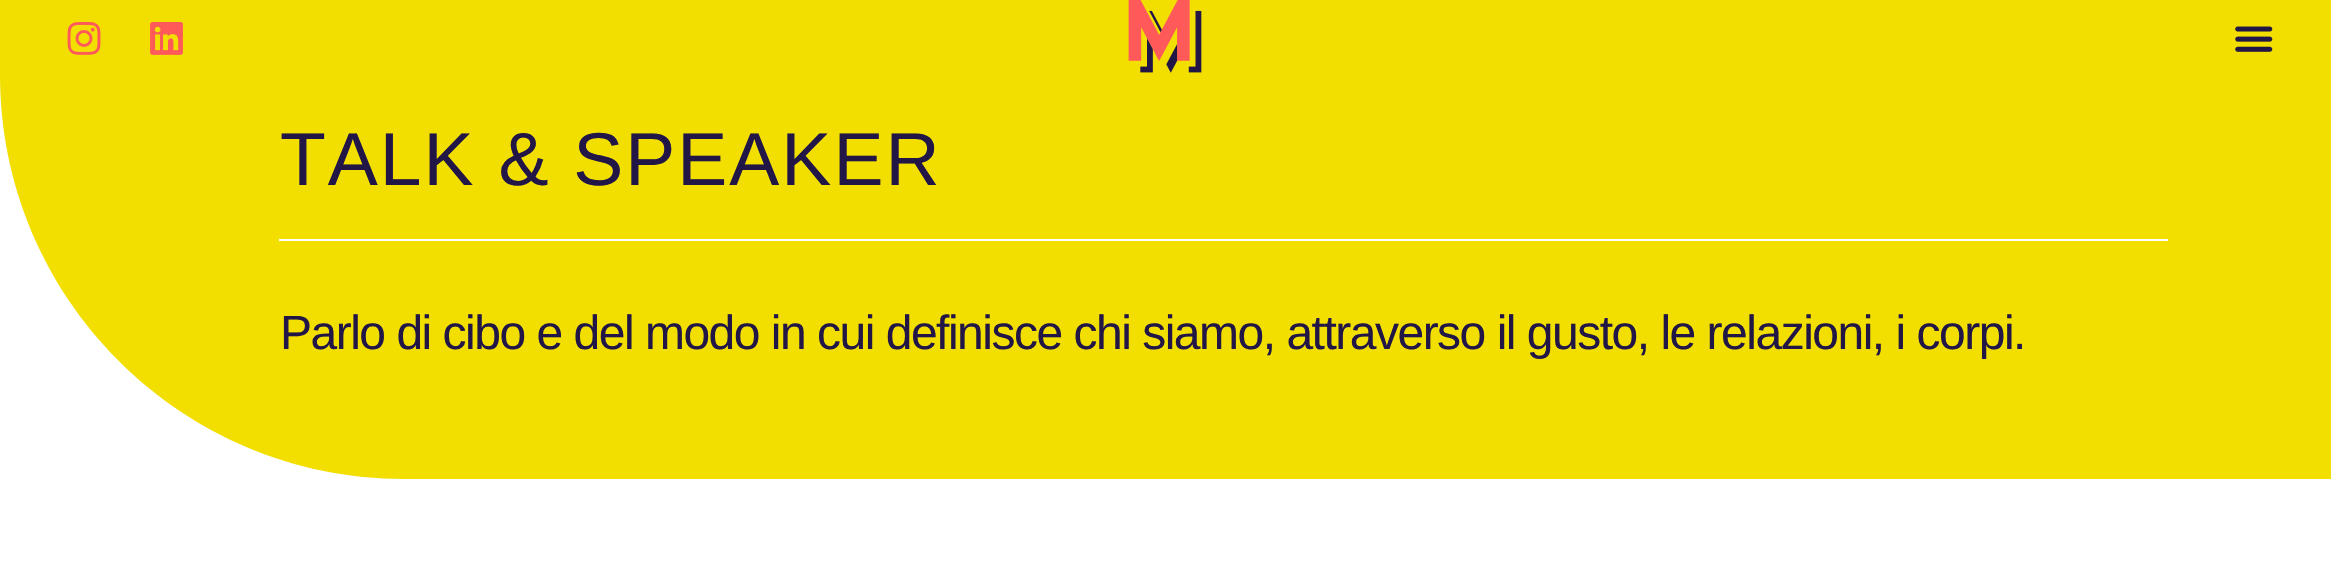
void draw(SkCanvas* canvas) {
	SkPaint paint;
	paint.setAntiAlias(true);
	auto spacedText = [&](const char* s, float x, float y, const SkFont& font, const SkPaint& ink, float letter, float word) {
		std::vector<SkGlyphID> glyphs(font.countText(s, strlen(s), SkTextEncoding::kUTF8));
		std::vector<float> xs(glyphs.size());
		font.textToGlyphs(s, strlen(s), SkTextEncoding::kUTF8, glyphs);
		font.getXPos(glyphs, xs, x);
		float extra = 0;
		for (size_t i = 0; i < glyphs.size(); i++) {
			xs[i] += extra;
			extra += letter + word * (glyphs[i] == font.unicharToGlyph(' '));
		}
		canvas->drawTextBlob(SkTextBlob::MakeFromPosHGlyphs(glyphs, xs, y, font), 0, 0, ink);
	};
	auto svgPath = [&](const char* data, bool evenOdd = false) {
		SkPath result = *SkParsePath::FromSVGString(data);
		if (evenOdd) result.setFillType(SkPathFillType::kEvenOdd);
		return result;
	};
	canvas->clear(0xffffffff);
	paint.setColor(0xfff2df00);
	canvas->drawRect(SkRect::MakeXYWH(0, 0, 2331, 75), paint);
	canvas->drawImageRect(SkImages::DeferredFromEncodedData(SkData::MakeFromFileName("img1.png")), SkRect::MakeXYWH(67, 21, 34, 34), SkSamplingOptions());
	canvas->drawImageRect(SkImages::DeferredFromEncodedData(SkData::MakeFromFileName("img2.png")), SkRect::MakeXYWH(150, 22, 33, 33), SkSamplingOptions());
	canvas->drawImageRect(SkImages::DeferredFromEncodedData(SkData::MakeFromFileName("img3.png")), SkRect::MakeXYWH(1128, 0, 74, 73), SkSamplingOptions());
	canvas->drawImageRect(SkImages::DeferredFromEncodedData(SkData::MakeFromFileName("img4.png")), SkRect::MakeXYWH(2235, 26, 38, 26), SkSamplingOptions());
	canvas->drawPath(svgPath("M0 75H2331V479H404C181 479 0 298 0 75Z"), paint);
	SkFont f1(fontMgr->matchFamilyStyle("Liberation Sans", SkFontStyle::Normal()), 75);
	f1.setSubpixel(true);
	paint.setColor(0xff211646);
	spacedText("TALK & SPEAKER", 280, 185, f1, paint, 2, 0);
	paint.setColor(0xffffffff);
	canvas->drawRect(SkRect::MakeXYWH(279, 239, 1889, 2), paint);
	SkFont f2(fontMgr->matchFamilyStyle("Liberation Sans", SkFontStyle::Normal()), 48);
	f2.setSubpixel(true);
	paint.setColor(0xff211646);
	spacedText("Parlo di cibo e del modo in cui definisce chi siamo, attraverso il gusto, le relazioni, i corpi.", 280, 349, f2, paint, -1.5, 0);
}
